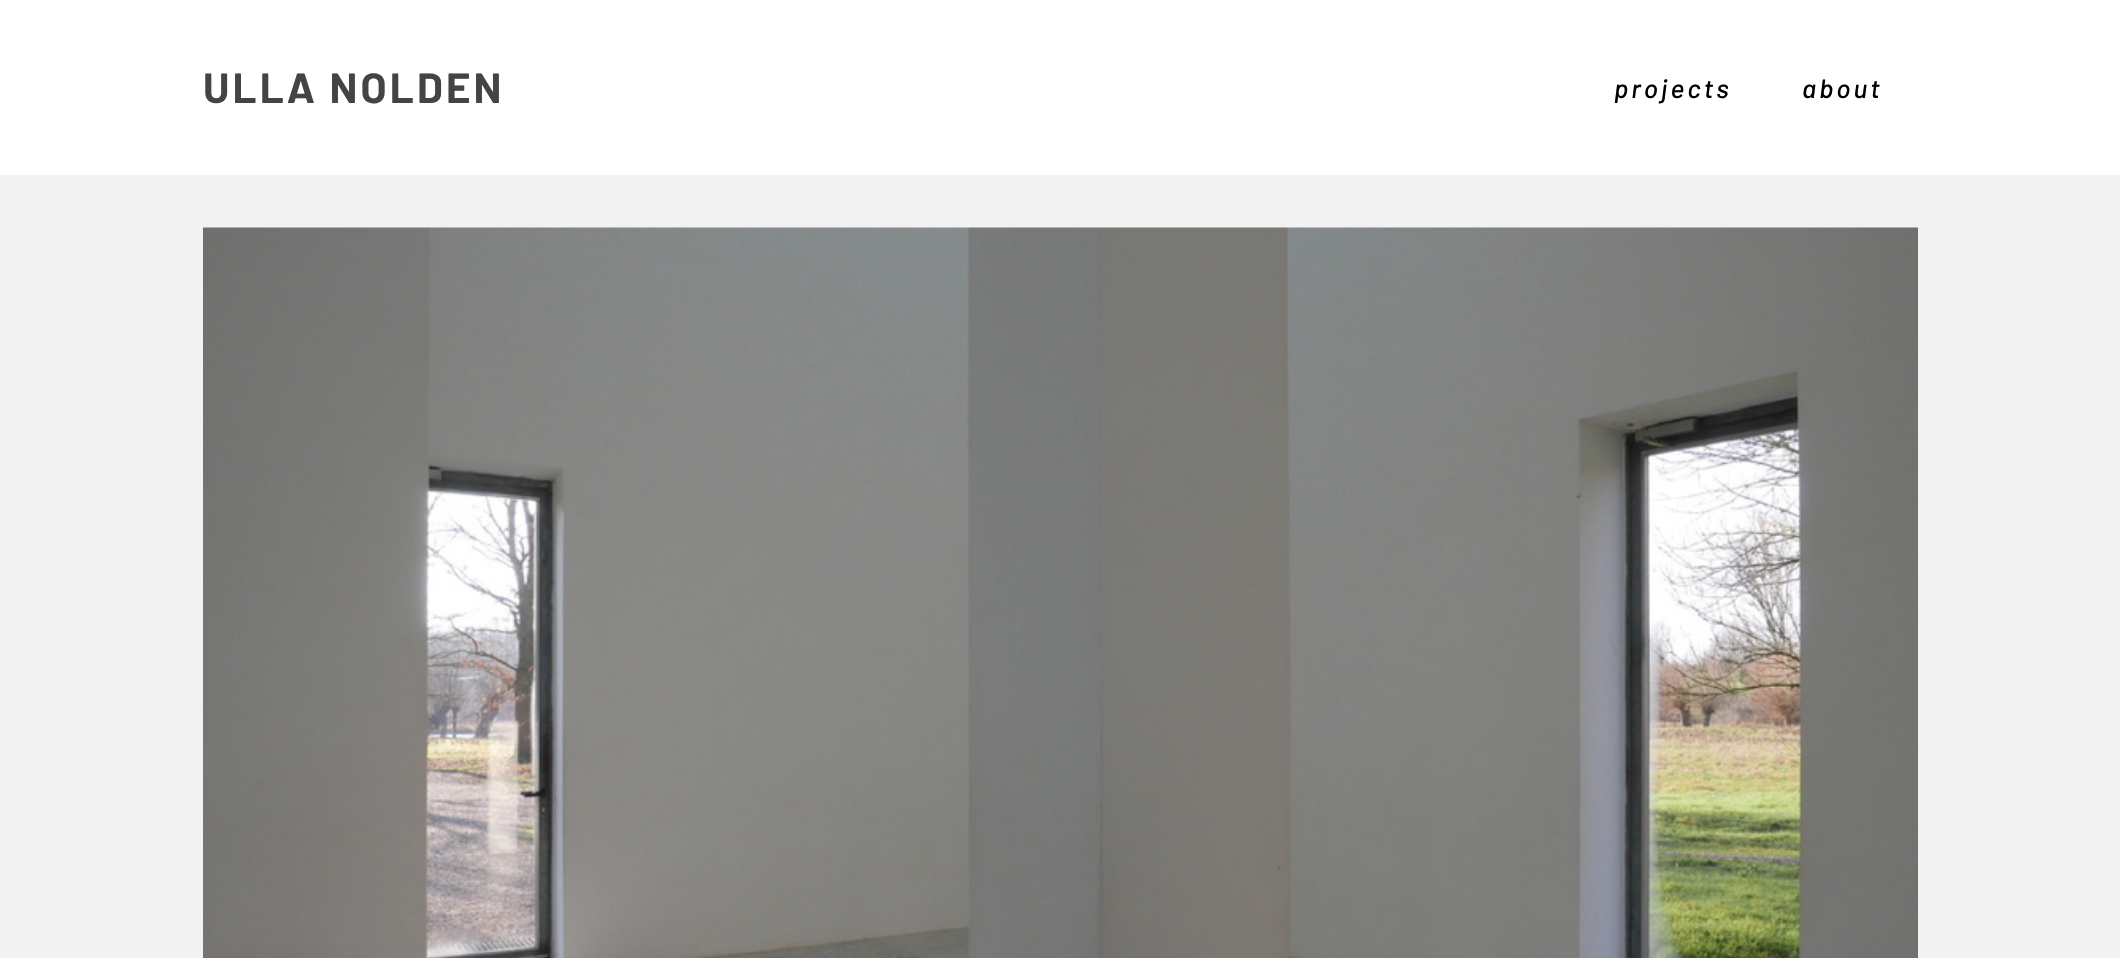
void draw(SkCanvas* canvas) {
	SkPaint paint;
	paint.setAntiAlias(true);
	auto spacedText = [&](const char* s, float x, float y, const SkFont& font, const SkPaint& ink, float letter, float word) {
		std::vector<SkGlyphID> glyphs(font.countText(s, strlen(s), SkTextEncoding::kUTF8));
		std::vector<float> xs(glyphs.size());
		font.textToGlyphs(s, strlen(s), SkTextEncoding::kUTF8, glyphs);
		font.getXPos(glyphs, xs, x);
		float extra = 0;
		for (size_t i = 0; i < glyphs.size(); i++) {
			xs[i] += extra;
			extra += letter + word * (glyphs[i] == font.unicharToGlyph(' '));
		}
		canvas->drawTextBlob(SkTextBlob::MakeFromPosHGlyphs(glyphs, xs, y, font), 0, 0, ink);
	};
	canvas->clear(0xfff2f2f2);
	paint.setColor(0xffffffff);
	canvas->drawRect(SkRect::MakeXYWH(0, 0, 2120, 175), paint);
	SkFont f1(fontMgr->matchFamilyStyle("Barlow", SkFontStyle::Bold()), 42);
	f1.setSubpixel(true);
	paint.setColor(0xff444444);
	spacedText("ULLA NOLDEN", 203, 103, f1, paint, 3.1, 0);
	SkFont f2(fontMgr->matchFamilyStyle("Barlow", SkFontStyle(500, SkFontStyle::kNormal_Width, SkFontStyle::kItalic_Slant)), 26.25);
	f2.setSubpixel(true);
	paint.setColor(0xff000000);
	spacedText("projects", 1614, 98, f2, paint, 3.1, 0);
	spacedText("about", 1802, 98, f2, paint, 3.1, 0);
	canvas->drawImageRect(SkImages::DeferredFromEncodedData(SkData::MakeFromFileName("img1.png")), SkRect::MakeXYWH(203, 227, 1715, 731), SkSamplingOptions());
}
